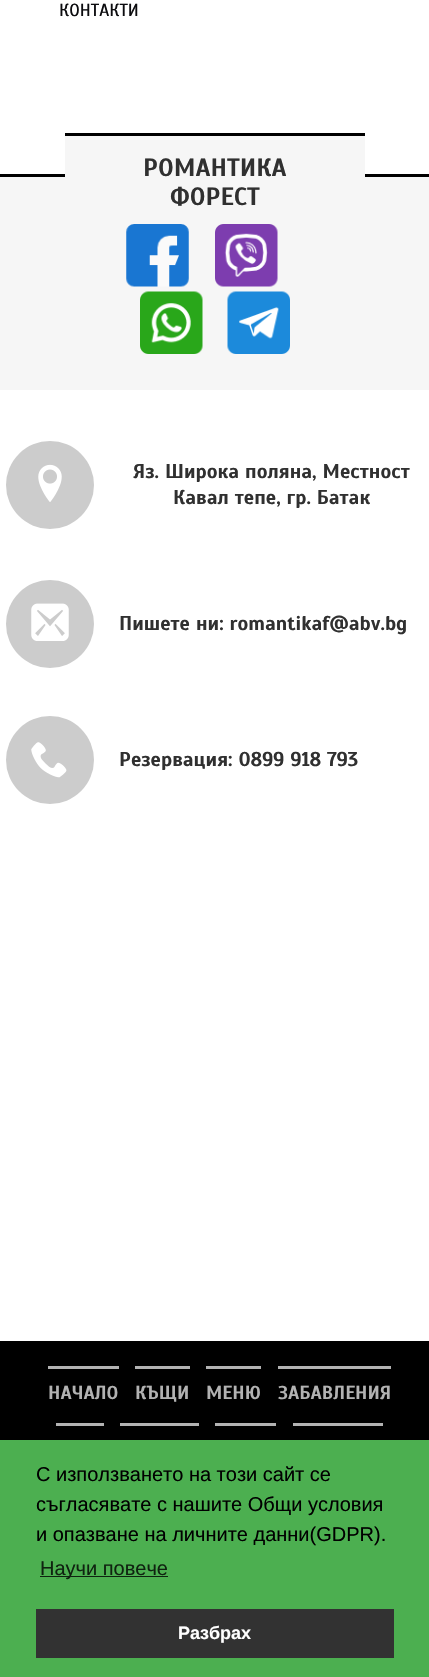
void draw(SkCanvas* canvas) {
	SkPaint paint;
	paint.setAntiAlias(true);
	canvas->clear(0xffffffff);
	SkFont f1(fontMgr->matchFamilyStyle("Scada", SkFontStyle::Normal()), 17.5);
	f1.setSubpixel(true);
	paint.setColor(0xff0c0c0f);
	canvas->drawString("КОНТАКТИ", 59, 16, f1, paint);
	paint.setColor(0xfff6f6f6);
	canvas->drawRect(SkRect::MakeXYWH(0, 177, 429, 213), paint);
	paint.setColor(0xff000000);
	canvas->drawRect(SkRect::MakeXYWH(0, 174, 429, 3), paint);
	paint.setColor(0xfff6f6f6);
	canvas->drawRect(SkRect::MakeXYWH(65, 136, 300, 41), paint);
	paint.setColor(0xff000000);
	canvas->drawRect(SkRect::MakeXYWH(65, 133, 300, 3), paint);
	SkFont f2(fontMgr->matchFamilyStyle("Scada", SkFontStyle::Bold()), 25);
	f2.setSubpixel(true);
	paint.setColor(0xff303030);
	canvas->drawString("РОМАНТИКА", 143, 176, f2, paint);
	canvas->drawString("ФОРЕСТ", 170, 205, f2, paint);
	canvas->drawImageRect(SkImages::DeferredFromEncodedData(SkData::MakeFromFileName("img1.png")), SkRect::MakeXYWH(126, 224, 63, 63), SkSamplingOptions());
	canvas->drawImageRect(SkImages::DeferredFromEncodedData(SkData::MakeFromFileName("img2.png")), SkRect::MakeXYWH(215, 224, 63, 63), SkSamplingOptions());
	canvas->drawImageRect(SkImages::DeferredFromEncodedData(SkData::MakeFromFileName("img3.png")), SkRect::MakeXYWH(140, 291, 63, 63), SkSamplingOptions());
	canvas->drawImageRect(SkImages::DeferredFromEncodedData(SkData::MakeFromFileName("img4.png")), SkRect::MakeXYWH(227, 291, 63, 63), SkSamplingOptions());
	paint.setColor(0xffcccccc);
	canvas->drawCircle(50, 485, 44, paint);
	canvas->drawImageRect(SkImages::DeferredFromEncodedData(SkData::MakeFromFileName("img5.png")), SkRect::MakeXYWH(38, 464, 24, 38), SkSamplingOptions());
	SkFont f3(fontMgr->matchFamilyStyle("Scada", SkFontStyle::Bold()), 20);
	f3.setSubpixel(true);
	paint.setColor(0xff303030);
	canvas->drawString("Яз. Широка поляна, Местност", 133, 478, f3, paint);
	canvas->drawString("Кавал тепе, гр. Батак", 173, 504, f3, paint);
	paint.setColor(0xffcccccc);
	canvas->drawCircle(50, 624, 44, paint);
	canvas->drawImageRect(SkImages::DeferredFromEncodedData(SkData::MakeFromFileName("img6.png")), SkRect::MakeXYWH(31, 603, 38, 38), SkSamplingOptions());
	paint.setColor(0xff303030);
	canvas->drawString("Пишете ни: romantikaf@abv.bg", 119, 630, f3, paint);
	paint.setColor(0xffcccccc);
	canvas->drawCircle(50, 760, 44, paint);
	canvas->drawImageRect(SkImages::DeferredFromEncodedData(SkData::MakeFromFileName("img7.png")), SkRect::MakeXYWH(31, 742, 36, 36), SkSamplingOptions());
	paint.setColor(0xff303030);
	canvas->drawString("Резервация: 0899 918 793", 119, 766, f3, paint);
	paint.setColor(0xff000000);
	canvas->drawRect(SkRect::MakeXYWH(0, 1341, 429, 99), paint);
	paint.setColor(0xffb2b2b2);
	canvas->drawRect(SkRect::MakeXYWH(48, 1366, 71, 3), paint);
	SkFont f4(fontMgr->matchFamilyStyle("Scada", SkFontStyle::Bold()), 18.75);
	f4.setSubpixel(true);
	canvas->drawString("НАЧАЛО", 48, 1399, f4, paint);
	canvas->drawRect(SkRect::MakeXYWH(135, 1366, 55, 3), paint);
	canvas->drawString("КЪЩИ", 135, 1399, f4, paint);
	canvas->drawRect(SkRect::MakeXYWH(206, 1366, 55, 3), paint);
	canvas->drawString("МЕНЮ", 206, 1399, f4, paint);
	canvas->drawRect(SkRect::MakeXYWH(278, 1366, 113, 3), paint);
	canvas->drawString("ЗАБАВЛЕНИЯ", 278, 1399, f4, paint);
	canvas->drawRect(SkRect::MakeXYWH(56, 1423, 48, 3), paint);
	canvas->drawRect(SkRect::MakeXYWH(120, 1423, 79, 3), paint);
	canvas->drawRect(SkRect::MakeXYWH(215, 1423, 61, 3), paint);
	canvas->drawRect(SkRect::MakeXYWH(293, 1423, 90, 3), paint);
	paint.setColor(0xff4caf50);
	canvas->drawRect(SkRect::MakeXYWH(0, 1440, 429, 237), paint);
	SkFont f5(fontMgr->matchFamilyStyle("Liberation Sans", SkFontStyle::Normal()), 20);
	f5.setSubpixel(true);
	paint.setColor(0xff000000);
	canvas->drawString("С използването на този сайт се", 36, 1481, f5, paint);
	canvas->drawString("съгласявате с нашите Общи условия", 36, 1511, f5, paint);
	canvas->drawString("и опазване на личните данни(GDPR).", 36, 1541, f5, paint);
	paint.setColor(0xff0f2310);
	canvas->drawRect(SkRect::MakeXYWH(40, 1576, 128, 1), paint);
	canvas->drawString("Научи повече", 40, 1575, f5, paint);
	paint.setColor(0xff323232);
	canvas->drawRect(SkRect::MakeXYWH(36, 1609, 358, 49), paint);
	SkFont f6(fontMgr->matchFamilyStyle("Liberation Sans", SkFontStyle::Bold()), 18);
	f6.setSubpixel(true);
	paint.setColor(0xffffffff);
	canvas->drawString("Разбрах", 178, 1639, f6, paint);
}
